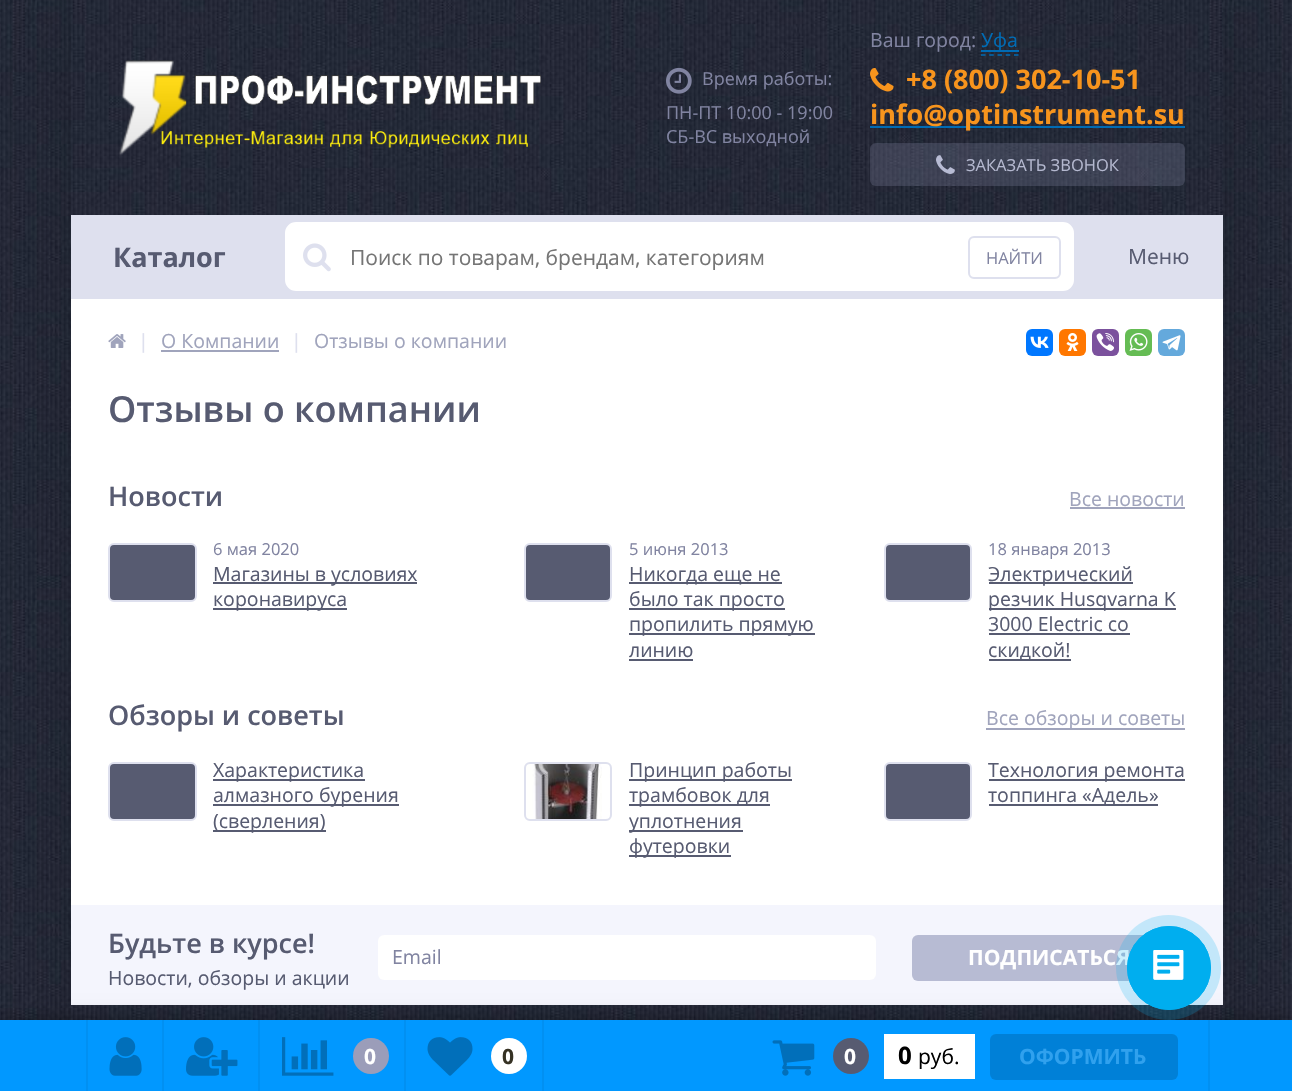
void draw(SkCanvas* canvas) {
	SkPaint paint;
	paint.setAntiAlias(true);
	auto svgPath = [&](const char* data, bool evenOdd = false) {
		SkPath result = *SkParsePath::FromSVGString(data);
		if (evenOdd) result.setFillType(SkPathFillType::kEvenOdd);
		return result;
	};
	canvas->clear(0xffffffff);
	canvas->drawImageRect(SkImages::DeferredFromEncodedData(SkData::MakeFromFileName("img1.png")), SkRect::MakeXYWH(0, 0, 1292, 1020), SkSamplingOptions());
	canvas->save();
	canvas->clipPath(svgPath("M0 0H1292V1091H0ZM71 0H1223V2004H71Z", true), true);
	paint.setColor(0x26000000);
	paint.setMaskFilter(SkMaskFilter::MakeBlur(kNormal_SkBlurStyle, 38));
	canvas->drawRect(SkRect::MakeXYWH(71, 0, 1152, 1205), paint);
	paint.setMaskFilter(nullptr);
	canvas->restore();
	canvas->drawImageRect(SkImages::DeferredFromEncodedData(SkData::MakeFromFileName("img2.png")), SkRect::MakeXYWH(119, 60, 422, 96), SkSamplingOptions());
	canvas->drawImageRect(SkImages::DeferredFromEncodedData(SkData::MakeFromFileName("img3.png")), SkRect::MakeXYWH(666, 67, 26, 27), SkSamplingOptions());
	SkFont f1(fontMgr->matchFamilyStyle("Open Sans", SkFontStyle::Normal()), 18);
	f1.setSubpixel(true);
	paint.setColor(0xff8184a1);
	canvas->drawString("Время работы:", 702, 85, f1, paint);
	canvas->drawString("ПН-ПТ 10:00 - 19:00", 666, 119, f1, paint);
	canvas->drawString("СБ-ВС выходной", 666, 143, f1, paint);
	SkFont f2(fontMgr->matchFamilyStyle("Open Sans", SkFontStyle::Normal()), 19.5);
	f2.setSubpixel(true);
	canvas->drawString("Ваш город:", 870, 47, f2, paint);
	paint.setColor(0xff006bb4);
	canvas->drawRect(SkRect::MakeXYWH(981, 50, 38, 2), paint);
	canvas->drawString("Уфа", 981, 47, f2, paint);
	paint.setStroke(true);
	paint.setStrokeWidth(1.5);
	paint.setPathEffect(SkDashPathEffect::Make({{4.5f, 3.75f}}, 0));
	canvas->drawPath(svgPath("M981 55H1018.5"), paint);
	paint.setPathEffect(nullptr);
	canvas->drawImageRect(SkImages::DeferredFromEncodedData(SkData::MakeFromFileName("img4.png")), SkRect::MakeXYWH(870, 68, 24, 24), SkSamplingOptions());
	SkFont f3(fontMgr->matchFamilyStyle("Open Sans", SkFontStyle::Bold()), 27);
	f3.setSubpixel(true);
	paint.setStroke(false);
	paint.setColor(0xfff7941d);
	canvas->drawString("+8 (800) 302-10-51", 906, 89, f3, paint);
	paint.setColor(0xff006bb4);
	canvas->drawRect(SkRect::MakeXYWH(870, 126, 315, 2), paint);
	paint.setColor(0xfff7941d);
	canvas->drawString("info@optinstrument.su", 870, 124, f3, paint);
	paint.setColor(0x458184a1);
	canvas->drawRoundRect(SkRect::MakeXYWH(870, 143, 315, 43), 6, 6, paint);
	canvas->drawImageRect(SkImages::DeferredFromEncodedData(SkData::MakeFromFileName("img5.png")), SkRect::MakeXYWH(936, 155, 19, 19), SkSamplingOptions());
	SkFont f4(fontMgr->matchFamilyStyle("Open Sans", SkFontStyle::Normal()), 16.5);
	f4.setSubpixel(true);
	paint.setColor(0xffb4b8cf);
	canvas->drawString("ЗАКАЗАТЬ ЗВОНОК", 966, 171, f4, paint);
	paint.setColor(0xffdee0ee);
	canvas->drawRect(SkRect::MakeXYWH(71, 215, 1152, 84), paint);
	paint.setColor(0xffffffff);
	canvas->drawRoundRect(SkRect::MakeXYWH(286, 223, 787, 67), 10, 10, paint);
	paint.setStroke(true);
	paint.setStrokeWidth(2);
	canvas->drawRoundRect(SkRect::MakeXYWH(286, 223, 787, 67), 10, 10, paint);
	canvas->drawImageRect(SkImages::DeferredFromEncodedData(SkData::MakeFromFileName("img6.png")), SkRect::MakeXYWH(303, 243, 28, 29), SkSamplingOptions());
	SkFont f5(fontMgr->matchFamilyStyle("Open Sans", SkFontStyle::Normal()), 21);
	f5.setSubpixel(true);
	paint.setStroke(false);
	paint.setColor(0xff757575);
	canvas->drawString("Поиск по товарам, брендам, категориям", 350, 265, f5, paint);
	paint.setStroke(true);
	paint.setColor(0xffdee0ee);
	canvas->drawRoundRect(SkRect::MakeXYWH(969, 237, 91, 41), 5, 5, paint);
	paint.setStroke(false);
	paint.setColor(0xff8184a1);
	canvas->drawString("НАЙТИ", 986, 264, f4, paint);
	paint.setColor(0xff575b71);
	canvas->drawString("Каталог", 113, 267, f3, paint);
	canvas->drawString("Меню", 1128, 264, f5, paint);
	paint.setColor(0xffffffff);
	canvas->drawRect(SkRect::MakeXYWH(71, 299, 1152, 606), paint);
	canvas->drawImageRect(SkImages::DeferredFromEncodedData(SkData::MakeFromFileName("img7.png")), SkRect::MakeXYWH(108, 334, 18, 14), SkSamplingOptions());
	paint.setColor(0xffdee0ee);
	canvas->drawString("|", 138, 348, f2, paint);
	paint.setColor(0xffa0a4bc);
	canvas->drawString("О Компании", 161, 348, f2, paint);
	canvas->drawRect(SkRect::MakeXYWH(161, 350, 118, 2), paint);
	paint.setColor(0xffdee0ee);
	canvas->drawString("|", 291, 348, f2, paint);
	paint.setColor(0xffa0a4bc);
	canvas->drawString("Отзывы о компании", 314, 348, f2, paint);
	paint.setColor(0xff0077ff);
	canvas->drawRoundRect(SkRect::MakeXYWH(1026, 329, 27, 27), 6, 6, paint);
	canvas->drawImageRect(SkImages::DeferredFromEncodedData(SkData::MakeFromFileName("img8.png")), SkRect::MakeXYWH(1030, 336, 19, 12), SkSamplingOptions());
	paint.setColor(0xffff7700);
	canvas->drawRoundRect(SkRect::MakeXYWH(1059, 329, 27, 27), 6, 6, paint);
	canvas->drawImageRect(SkImages::DeferredFromEncodedData(SkData::MakeFromFileName("img9.png")), SkRect::MakeXYWH(1066, 333, 13, 18), SkSamplingOptions());
	paint.setColor(0xff7b519d);
	canvas->drawRoundRect(SkRect::MakeXYWH(1092, 329, 27, 27), 6, 6, paint);
	canvas->drawImageRect(SkImages::DeferredFromEncodedData(SkData::MakeFromFileName("img10.png")), SkRect::MakeXYWH(1096, 333, 18, 18), SkSamplingOptions());
	paint.setColor(0xff65bc54);
	canvas->drawRoundRect(SkRect::MakeXYWH(1125, 329, 27, 27), 6, 6, paint);
	canvas->drawImageRect(SkImages::DeferredFromEncodedData(SkData::MakeFromFileName("img11.png")), SkRect::MakeXYWH(1129, 333, 19, 18), SkSamplingOptions());
	paint.setColor(0xff64a9dc);
	canvas->drawRoundRect(SkRect::MakeXYWH(1158, 329, 27, 27), 6, 6, paint);
	canvas->drawImageRect(SkImages::DeferredFromEncodedData(SkData::MakeFromFileName("img12.png")), SkRect::MakeXYWH(1162, 335, 19, 16), SkSamplingOptions());
	SkFont f6(fontMgr->matchFamilyStyle("Open Sans", SkFontStyle(600, SkFontStyle::kNormal_Width, SkFontStyle::kUpright_Slant)), 36);
	f6.setSubpixel(true);
	paint.setColor(0xff575b71);
	canvas->drawString("Отзывы о компании", 108, 422, f6, paint);
	SkFont f7(fontMgr->matchFamilyStyle("Open Sans", SkFontStyle(600, SkFontStyle::kNormal_Width, SkFontStyle::kUpright_Slant)), 27);
	f7.setSubpixel(true);
	canvas->drawString("Новости", 108, 506, f7, paint);
	paint.setColor(0xffa0a4bc);
	canvas->drawString("Все новости", 1069, 506, f2, paint);
	canvas->drawRect(SkRect::MakeXYWH(1070, 507, 115, 2), paint);
	paint.setColor(0xff575b71);
	canvas->drawRoundRect(SkRect::MakeXYWH(109, 544, 87, 57), 5, 5, paint);
	paint.setStroke(true);
	paint.setColor(0xffdee0ee);
	canvas->drawRoundRect(SkRect::MakeXYWH(109, 544, 87, 57), 5, 5, paint);
	paint.setStroke(false);
	paint.setColor(0xff8184a1);
	canvas->drawString("6 мая 2020", 213, 555, f4, paint);
	paint.setColor(0xff575b71);
	canvas->drawRect(SkRect::MakeXYWH(213, 582, 204, 2), paint);
	canvas->drawString("Магазины в условиях", 213, 581, f2, paint);
	canvas->drawRect(SkRect::MakeXYWH(213, 608, 134, 2), paint);
	canvas->drawString("коронавируса", 213, 606, f2, paint);
	canvas->drawRoundRect(SkRect::MakeXYWH(525, 544, 86, 57), 5, 5, paint);
	paint.setStroke(true);
	paint.setColor(0xffdee0ee);
	canvas->drawRoundRect(SkRect::MakeXYWH(525, 544, 86, 57), 5, 5, paint);
	paint.setStroke(false);
	paint.setColor(0xff8184a1);
	canvas->drawString("5 июня 2013", 629, 555, f4, paint);
	paint.setColor(0xff575b71);
	canvas->drawRect(SkRect::MakeXYWH(629, 582, 153, 2), paint);
	canvas->drawString("Никогда еще не", 629, 581, f2, paint);
	canvas->drawRect(SkRect::MakeXYWH(629, 608, 156, 2), paint);
	canvas->drawString("было так просто", 629, 606, f2, paint);
	canvas->drawRect(SkRect::MakeXYWH(629, 633, 186, 2), paint);
	canvas->drawString("пропилить прямую", 629, 631, f2, paint);
	canvas->drawString("линию", 629, 657, f2, paint);
	canvas->drawRect(SkRect::MakeXYWH(629, 659, 64, 2), paint);
	canvas->drawRoundRect(SkRect::MakeXYWH(885, 544, 86, 57), 5, 5, paint);
	paint.setStroke(true);
	paint.setColor(0xffdee0ee);
	canvas->drawRoundRect(SkRect::MakeXYWH(885, 544, 86, 57), 5, 5, paint);
	paint.setStroke(false);
	paint.setColor(0xff8184a1);
	canvas->drawString("18 января 2013", 988, 555, f4, paint);
	paint.setColor(0xff575b71);
	canvas->drawRect(SkRect::MakeXYWH(989, 582, 144, 2), paint);
	canvas->drawString("Электрический", 988, 581, f2, paint);
	canvas->drawRect(SkRect::MakeXYWH(989, 608, 187, 2), paint);
	canvas->drawString("резчик Husqvarna K", 988, 606, f2, paint);
	canvas->drawString("3000 Electric со", 988, 631, f2, paint);
	canvas->drawRect(SkRect::MakeXYWH(989, 633, 141, 2), paint);
	canvas->drawRect(SkRect::MakeXYWH(989, 659, 82, 2), paint);
	canvas->drawString("скидкой!", 988, 657, f2, paint);
	canvas->drawString("Обзоры и советы", 108, 725, f7, paint);
	paint.setColor(0xffa0a4bc);
	canvas->drawRect(SkRect::MakeXYWH(986, 728, 199, 2), paint);
	canvas->drawString("Все обзоры и советы", 986, 725, f2, paint);
	paint.setColor(0xff575b71);
	canvas->drawRoundRect(SkRect::MakeXYWH(109, 763, 87, 57), 5, 5, paint);
	paint.setStroke(true);
	paint.setColor(0xffdee0ee);
	canvas->drawRoundRect(SkRect::MakeXYWH(109, 763, 87, 57), 5, 5, paint);
	paint.setStroke(false);
	paint.setColor(0xff575b71);
	canvas->drawRect(SkRect::MakeXYWH(213, 779, 152, 2), paint);
	canvas->drawString("Характеристика", 213, 777, f2, paint);
	canvas->drawRect(SkRect::MakeXYWH(213, 804, 186, 2), paint);
	canvas->drawString("алмазного бурения", 213, 802, f2, paint);
	canvas->drawRect(SkRect::MakeXYWH(213, 830, 113, 2), paint);
	canvas->drawString("(сверления)", 213, 828, f2, paint);
	canvas->drawImageRect(SkImages::DeferredFromEncodedData(SkData::MakeFromFileName("img13.png")), SkRect::MakeXYWH(525, 762, 86, 59), SkSamplingOptions());
	paint.setStroke(true);
	paint.setColor(0xffdee0ee);
	canvas->drawRoundRect(SkRect::MakeXYWH(525, 763, 86, 57), 5, 5, paint);
	paint.setStroke(false);
	paint.setColor(0xff575b71);
	canvas->drawRect(SkRect::MakeXYWH(629, 779, 163, 2), paint);
	canvas->drawString("Принцип работы", 629, 777, f2, paint);
	canvas->drawRect(SkRect::MakeXYWH(629, 804, 141, 2), paint);
	canvas->drawString("трамбовок для", 629, 802, f2, paint);
	canvas->drawRect(SkRect::MakeXYWH(629, 830, 114, 2), paint);
	canvas->drawString("уплотнения", 629, 828, f2, paint);
	canvas->drawRect(SkRect::MakeXYWH(629, 855, 102, 2), paint);
	canvas->drawString("футеровки", 629, 853, f2, paint);
	canvas->drawRoundRect(SkRect::MakeXYWH(885, 763, 86, 57), 5, 5, paint);
	paint.setStroke(true);
	paint.setColor(0xffdee0ee);
	canvas->drawRoundRect(SkRect::MakeXYWH(885, 763, 86, 57), 5, 5, paint);
	paint.setStroke(false);
	paint.setColor(0xff575b71);
	canvas->drawRect(SkRect::MakeXYWH(989, 779, 196, 2), paint);
	canvas->drawString("Технология ремонта", 988, 777, f2, paint);
	canvas->drawRect(SkRect::MakeXYWH(989, 804, 169, 2), paint);
	canvas->drawString("топпинга «Адель»", 988, 802, f2, paint);
	paint.setColor(0xfff4f5fd);
	canvas->drawRect(SkRect::MakeXYWH(71, 905, 1152, 100), paint);
	paint.setColor(0xff575b71);
	canvas->drawString("Будьте в курсе!", 108, 953, f7, paint);
	canvas->drawString("Новости, обзоры и акции", 108, 985, f2, paint);
	paint.setColor(0xffffffff);
	canvas->drawRoundRect(SkRect::MakeXYWH(378, 935, 498, 45), 6, 6, paint);
	paint.setColor(0xff8184a1);
	canvas->drawString("Email", 392, 964, f2, paint);
	paint.setColor(0xffb7bbd3);
	canvas->drawRoundRect(SkRect::MakeXYWH(912, 935, 275, 46), 6, 6, paint);
	SkFont f8(fontMgr->matchFamilyStyle("Open Sans", SkFontStyle::Bold()), 21);
	f8.setSubpixel(true);
	paint.setColor(0xffffffff);
	canvas->drawString("ПОДПИСАТЬСЯ", 968, 965, f8, paint);
	paint.setColor(0x5c000000);
	paint.setMaskFilter(SkMaskFilter::MakeBlur(kNormal_SkBlurStyle, 9));
	canvas->drawRect(SkRect::MakeXYWH(0, 1020, 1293, 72), paint);
	paint.setMaskFilter(nullptr);
	paint.setColor(0xff0198ff);
	canvas->drawRect(SkRect::MakeXYWH(0, 1020, 1292, 71), paint);
	paint.setColor(0xff0190f2);
	canvas->drawRect(SkRect::MakeXYWH(1208, 1020, 2, 71), paint);
	canvas->drawRect(SkRect::MakeXYWH(86, 1020, 2, 71), paint);
	canvas->drawRect(SkRect::MakeXYWH(162, 1020, 2, 71), paint);
	canvas->drawImageRect(SkImages::DeferredFromEncodedData(SkData::MakeFromFileName("img14.png")), SkRect::MakeXYWH(109, 1037, 33, 39), SkSamplingOptions());
	canvas->drawRect(SkRect::MakeXYWH(258, 1020, 2, 71), paint);
	canvas->drawImageRect(SkImages::DeferredFromEncodedData(SkData::MakeFromFileName("img15.png")), SkRect::MakeXYWH(186, 1037, 52, 39), SkSamplingOptions());
	canvas->drawRect(SkRect::MakeXYWH(404, 1020, 2, 71), paint);
	canvas->drawImageRect(SkImages::DeferredFromEncodedData(SkData::MakeFromFileName("img16.png")), SkRect::MakeXYWH(282, 1037, 52, 39), SkSamplingOptions());
	paint.setColor(0xff9b9db9);
	canvas->drawCircle(371, 1056, 18, paint);
	paint.setColor(0xffffffff);
	canvas->drawString("0", 364, 1064, f8, paint);
	paint.setColor(0xff0190f2);
	canvas->drawRect(SkRect::MakeXYWH(542, 1020, 2, 71), paint);
	canvas->drawImageRect(SkImages::DeferredFromEncodedData(SkData::MakeFromFileName("img17.png")), SkRect::MakeXYWH(427, 1037, 46, 39), SkSamplingOptions());
	paint.setColor(0xffffffff);
	canvas->drawCircle(509, 1056, 18, paint);
	paint.setColor(0xff363224);
	canvas->drawString("0", 502, 1064, f8, paint);
	canvas->drawImageRect(SkImages::DeferredFromEncodedData(SkData::MakeFromFileName("img18.png")), SkRect::MakeXYWH(772, 1040, 43, 36), SkSamplingOptions());
	paint.setColor(0xff575b71);
	canvas->drawCircle(851, 1056, 18, paint);
	paint.setColor(0xffffffff);
	canvas->drawString("0", 844, 1064, f8, paint);
	canvas->drawRect(SkRect::MakeXYWH(884, 1034, 91, 45), paint);
	SkFont f9(fontMgr->matchFamilyStyle("Open Sans", SkFontStyle::Bold()), 24);
	f9.setSubpixel(true);
	paint.setColor(0xff000000);
	canvas->drawString("0", 898, 1064, f9, paint);
	canvas->drawString("руб.", 918, 1064, f5, paint);
	paint.setColor(0xff0080d7);
	canvas->drawRoundRect(SkRect::MakeXYWH(990, 1034, 188, 46), 6, 6, paint);
	paint.setColor(0xff30a1ee);
	canvas->drawString("ОФОРМИТЬ", 1019, 1064, f8, paint);
	paint.setColor(0x3300aeef);
	canvas->drawCircle(1168.5, 967.5, 52.5, paint);
	paint.setStroke(true);
	paint.setStrokeWidth(1);
	paint.setColor(0xff00aeef);
	canvas->drawCircle(1169, 968, 41.5, paint);
	paint.setStroke(false);
	canvas->drawCircle(1169, 968, 42, paint);
	canvas->drawImageRect(SkImages::DeferredFromEncodedData(SkData::MakeFromFileName("img19.png")), SkRect::MakeXYWH(1153, 950, 31, 30), SkSamplingOptions());
}
